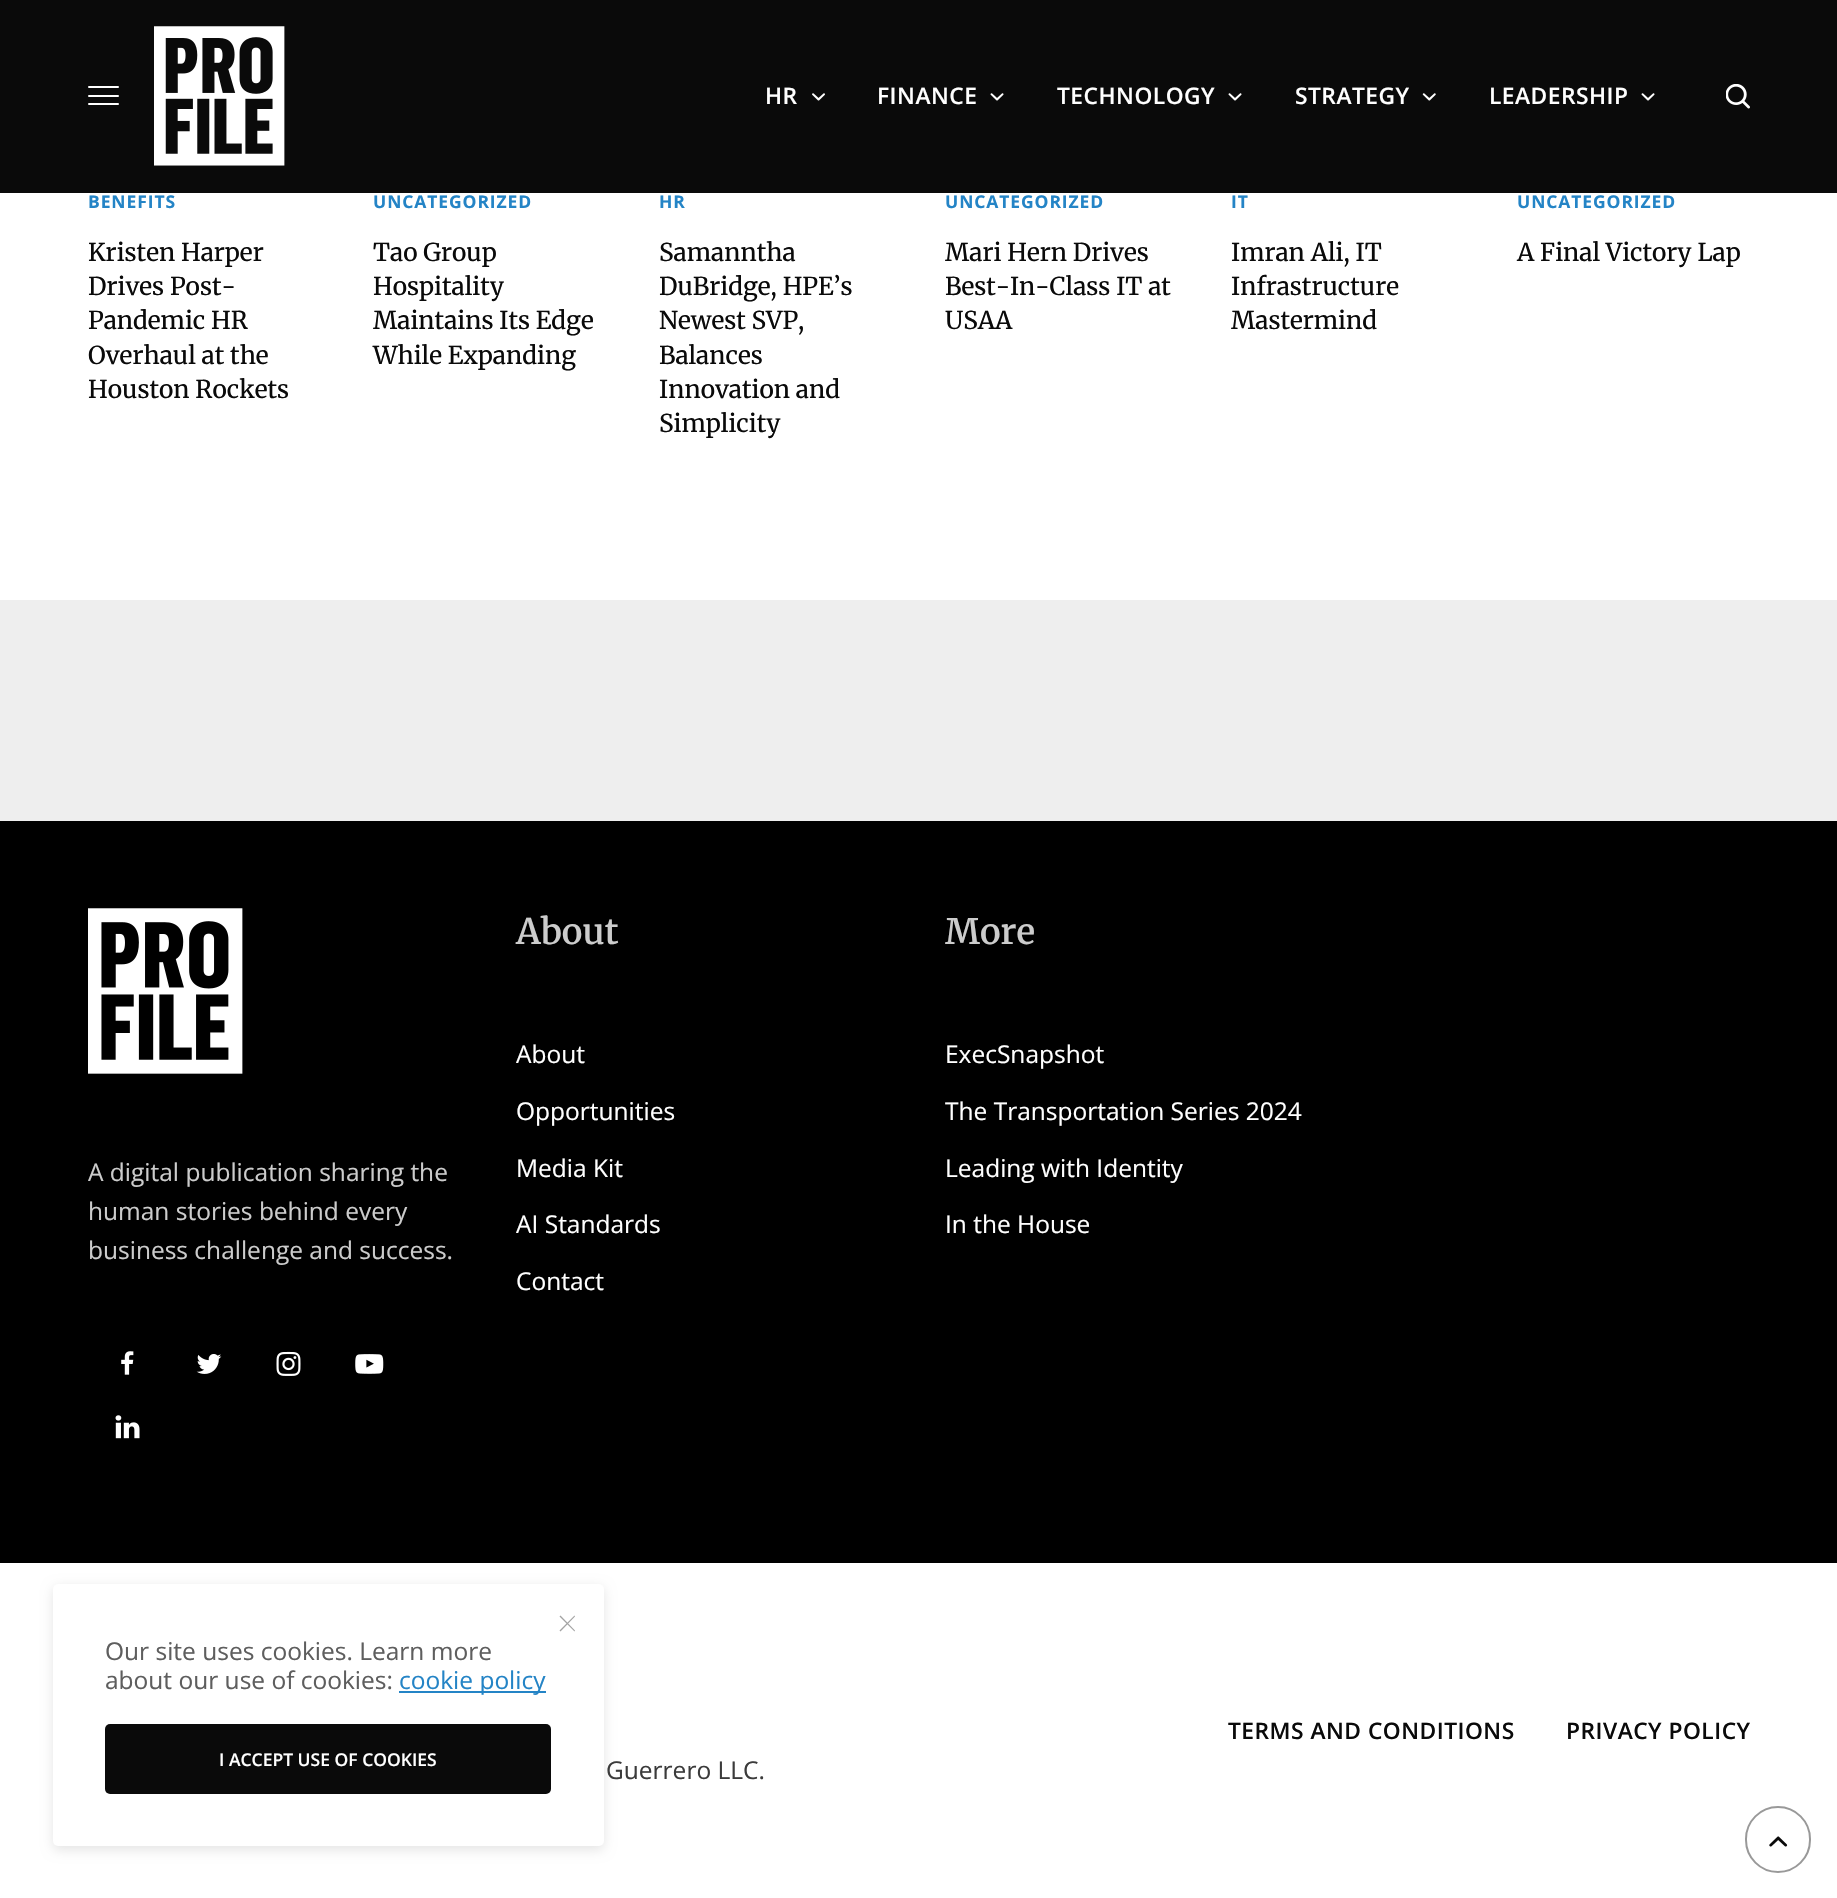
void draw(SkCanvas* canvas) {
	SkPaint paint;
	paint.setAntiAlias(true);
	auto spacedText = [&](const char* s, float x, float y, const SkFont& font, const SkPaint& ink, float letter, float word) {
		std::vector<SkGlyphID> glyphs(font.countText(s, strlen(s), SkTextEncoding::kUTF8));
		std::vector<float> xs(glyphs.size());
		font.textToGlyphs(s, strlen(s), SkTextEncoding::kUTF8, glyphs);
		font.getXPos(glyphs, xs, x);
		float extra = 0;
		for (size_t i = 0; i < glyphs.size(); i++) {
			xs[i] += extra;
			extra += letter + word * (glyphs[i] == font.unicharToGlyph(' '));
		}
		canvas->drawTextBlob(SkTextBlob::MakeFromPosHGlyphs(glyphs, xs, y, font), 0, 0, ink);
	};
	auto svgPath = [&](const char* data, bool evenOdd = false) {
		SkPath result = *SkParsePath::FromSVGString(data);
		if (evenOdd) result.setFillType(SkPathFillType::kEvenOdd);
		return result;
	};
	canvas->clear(0xffffffff);
	paint.setColor(0xff0a0a0a);
	canvas->drawRect(SkRect::MakeXYWH(0, 0, 1837, 193), paint);
	paint.setColor(0xffffffff);
	canvas->drawRoundRect(SkRect::MakeXYWH(88, 86, 31, 2), 1, 1, paint);
	canvas->drawRoundRect(SkRect::MakeXYWH(88, 95, 31, 2), 1, 1, paint);
	canvas->drawRoundRect(SkRect::MakeXYWH(88, 103, 31, 2), 1, 1, paint);
	canvas->drawImageRect(SkImages::DeferredFromEncodedData(SkData::MakeFromFileName("img1.png")), SkRect::MakeXYWH(154, 26, 131, 140), SkSamplingOptions());
	SkFont f1(fontMgr->matchFamilyStyle("Open Sans", SkFontStyle(600, SkFontStyle::kNormal_Width, SkFontStyle::kUpright_Slant)), 22.75);
	f1.setSubpixel(true);
	spacedText("HR", 765, 104, f1, paint, 0.5, 0);
	canvas->drawImageRect(SkImages::DeferredFromEncodedData(SkData::MakeFromFileName("img2.png")), SkRect::MakeXYWH(812, 93, 13, 8), SkSamplingOptions());
	spacedText("FINANCE", 877, 104, f1, paint, 0.5, 0);
	canvas->drawImageRect(SkImages::DeferredFromEncodedData(SkData::MakeFromFileName("img3.png")), SkRect::MakeXYWH(990, 93, 14, 8), SkSamplingOptions());
	spacedText("TECHNOLOGY", 1057, 104, f1, paint, 0.5, 0);
	canvas->drawImageRect(SkImages::DeferredFromEncodedData(SkData::MakeFromFileName("img3.png")), SkRect::MakeXYWH(1228, 93, 14, 8), SkSamplingOptions());
	spacedText("STRATEGY", 1295, 104, f1, paint, 0.5, 0);
	canvas->drawImageRect(SkImages::DeferredFromEncodedData(SkData::MakeFromFileName("img4.png")), SkRect::MakeXYWH(1422, 93, 14, 8), SkSamplingOptions());
	spacedText("LEADERSHIP", 1489, 104, f1, paint, 0.5, 0);
	canvas->drawImageRect(SkImages::DeferredFromEncodedData(SkData::MakeFromFileName("img3.png")), SkRect::MakeXYWH(1641, 93, 14, 8), SkSamplingOptions());
	canvas->drawImageRect(SkImages::DeferredFromEncodedData(SkData::MakeFromFileName("img5.png")), SkRect::MakeXYWH(1726, 84, 24, 25), SkSamplingOptions());
	SkFont f2(fontMgr->matchFamilyStyle("Open Sans", SkFontStyle::Bold()), 17.5);
	f2.setSubpixel(true);
	paint.setColor(0xff2484c6);
	spacedText("BENEFITS", 88, 208, f2, paint, 0.9, 0);
	SkFont f3(fontMgr->matchFamilyStyle("Merriweather", SkFontStyle::Normal()), 24.5);
	f3.setSubpixel(true);
	paint.setColor(0xff0a0a0a);
	canvas->drawString("Kristen Harper", 88, 261, f3, paint);
	canvas->drawString("Drives Post-", 88, 295, f3, paint);
	canvas->drawString("Pandemic HR", 88, 329, f3, paint);
	canvas->drawString("Overhaul at the", 88, 364, f3, paint);
	canvas->drawString("Houston Rockets", 88, 398, f3, paint);
	paint.setColor(0xff2484c6);
	spacedText("UNCATEGORIZED", 373, 208, f2, paint, 0.9, 0);
	paint.setColor(0xff0a0a0a);
	canvas->drawString("Tao Group", 373, 261, f3, paint);
	canvas->drawString("Hospitality", 373, 295, f3, paint);
	canvas->drawString("Maintains Its Edge", 373, 329, f3, paint);
	canvas->drawString("While Expanding", 373, 364, f3, paint);
	paint.setColor(0xff2484c6);
	spacedText("HR", 659, 208, f2, paint, 0.9, 0);
	paint.setColor(0xff0a0a0a);
	canvas->drawString("Samanntha", 659, 261, f3, paint);
	canvas->drawString("DuBridge, HPE’s", 659, 295, f3, paint);
	canvas->drawString("Newest SVP,", 659, 329, f3, paint);
	canvas->drawString("Balances", 659, 364, f3, paint);
	canvas->drawString("Innovation and", 659, 398, f3, paint);
	canvas->drawString("Simplicity", 659, 432, f3, paint);
	paint.setColor(0xff2484c6);
	spacedText("UNCATEGORIZED", 945, 208, f2, paint, 0.9, 0);
	paint.setColor(0xff0a0a0a);
	canvas->drawString("Mari Hern Drives", 945, 261, f3, paint);
	canvas->drawString("Best-In-Class IT at", 945, 295, f3, paint);
	canvas->drawString("USAA", 945, 329, f3, paint);
	paint.setColor(0xff2484c6);
	spacedText("IT", 1231, 208, f2, paint, 0.9, 0);
	paint.setColor(0xff0a0a0a);
	canvas->drawString("Imran Ali, IT", 1231, 261, f3, paint);
	canvas->drawString("Infrastructure", 1231, 295, f3, paint);
	canvas->drawString("Mastermind", 1231, 329, f3, paint);
	paint.setColor(0xff2484c6);
	spacedText("UNCATEGORIZED", 1517, 208, f2, paint, 0.9, 0);
	paint.setColor(0xff0a0a0a);
	canvas->drawString("A Final Victory Lap", 1517, 261, f3, paint);
	paint.setColor(0xffeeeeee);
	canvas->drawRect(SkRect::MakeXYWH(0, 600, 1837, 221), paint);
	paint.setColor(0xff000000);
	canvas->drawRect(SkRect::MakeXYWH(0, 821, 1837, 742), paint);
	canvas->drawImageRect(SkImages::DeferredFromEncodedData(SkData::MakeFromFileName("img6.png")), SkRect::MakeXYWH(88, 908, 155, 166), SkSamplingOptions());
	SkFont f4(fontMgr->matchFamilyStyle("Open Sans", SkFontStyle::Normal()), 24.5);
	f4.setSubpixel(true);
	paint.setColor(0xffcccccc);
	canvas->drawString("A digital publication sharing the", 88, 1181, f4, paint);
	canvas->drawString("human stories behind every", 88, 1220, f4, paint);
	canvas->drawString("business challenge and success.", 88, 1259, f4, paint);
	canvas->drawImageRect(SkImages::DeferredFromEncodedData(SkData::MakeFromFileName("img7.png")), SkRect::MakeXYWH(121, 1351, 13, 24), SkSamplingOptions());
	canvas->drawImageRect(SkImages::DeferredFromEncodedData(SkData::MakeFromFileName("img8.png")), SkRect::MakeXYWH(196, 1354, 26, 20), SkSamplingOptions());
	canvas->drawImageRect(SkImages::DeferredFromEncodedData(SkData::MakeFromFileName("img9.png")), SkRect::MakeXYWH(276, 1351, 25, 25), SkSamplingOptions());
	canvas->drawImageRect(SkImages::DeferredFromEncodedData(SkData::MakeFromFileName("img10.png")), SkRect::MakeXYWH(355, 1354, 29, 20), SkSamplingOptions());
	canvas->drawImageRect(SkImages::DeferredFromEncodedData(SkData::MakeFromFileName("img11.png")), SkRect::MakeXYWH(115, 1415, 25, 24), SkSamplingOptions());
	SkFont f5(fontMgr->matchFamilyStyle("Merriweather", SkFontStyle(600, SkFontStyle::kNormal_Width, SkFontStyle::kUpright_Slant)), 35);
	f5.setSubpixel(true);
	canvas->drawString("About", 516, 944, f5, paint);
	paint.setColor(0xffffffff);
	canvas->drawString("About", 516, 1063, f4, paint);
	canvas->drawString("Opportunities", 516, 1120, f4, paint);
	canvas->drawString("Media Kit", 516, 1177, f4, paint);
	canvas->drawString("AI Standards", 516, 1233, f4, paint);
	canvas->drawString("Contact", 516, 1290, f4, paint);
	paint.setColor(0xffcccccc);
	canvas->drawString("More", 945, 944, f5, paint);
	paint.setColor(0xffffffff);
	canvas->drawString("ExecSnapshot", 945, 1063, f4, paint);
	canvas->drawString("The Transportation Series 2024", 945, 1120, f4, paint);
	canvas->drawString("Leading with Identity", 945, 1177, f4, paint);
	canvas->drawString("In the House", 945, 1233, f4, paint);
	paint.setColor(0x1a000000);
	paint.setMaskFilter(SkMaskFilter::MakeBlur(kNormal_SkBlurStyle, 6));
	canvas->drawRoundRect(SkRect::MakeXYWH(53, 1587, 551, 263), 5, 5, paint);
	paint.setMaskFilter(nullptr);
	paint.setColor(0xffffffff);
	canvas->drawRoundRect(SkRect::MakeXYWH(53, 1584, 551, 262), 5, 5, paint);
	paint.setColor(0xffa3a3a3);
	canvas->drawPath(svgPath("M560.5 1615.5L575 1630.5L574.5 1631.5L559.5 1616.5Z"), paint);
	canvas->drawPath(svgPath("M559.5 1630.5L574.5 1615.5L575 1616.5L560.5 1631.5Z"), paint);
	paint.setColor(0xff5e5e5e);
	canvas->drawString("Our site uses cookies. Learn more", 105, 1660, f4, paint);
	canvas->drawString("about our use of cookies:", 105, 1689, f4, paint);
	paint.setColor(0xff2484c6);
	canvas->drawRect(SkRect::MakeXYWH(399, 1691, 147, 2), paint);
	canvas->drawString("cookie policy", 399, 1689, f4, paint);
	paint.setColor(0xff0a0a0a);
	canvas->drawRoundRect(SkRect::MakeXYWH(105, 1724, 446, 70), 5, 5, paint);
	SkFont f6(fontMgr->matchFamilyStyle("Open Sans", SkFontStyle(600, SkFontStyle::kNormal_Width, SkFontStyle::kUpright_Slant)), 17.5);
	f6.setSubpixel(true);
	paint.setColor(0xffffffff);
	canvas->drawString("I ACCEPT USE OF COOKIES", 219, 1766, f6, paint);
	paint.setColor(0xff0a0a0a);
	spacedText("TERMS AND CONDITIONS", 1228, 1739, f1, paint, 0.5, 0);
	spacedText("PRIVACY POLICY", 1566, 1739, f1, paint, 0.5, 0);
	paint.setColor(0xff3b3b3b);
	canvas->drawString("Guerrero LLC.", 606, 1779, f4, paint);
	paint.setStroke(true);
	paint.setStrokeWidth(2);
	paint.setColor(0xff999999);
	canvas->drawRoundRect(SkRect::MakeXYWH(1746, 1807, 64, 65), 32, 32, paint);
	canvas->drawImageRect(SkImages::DeferredFromEncodedData(SkData::MakeFromFileName("img12.png")), SkRect::MakeXYWH(1769, 1836, 19, 11), SkSamplingOptions());
}
